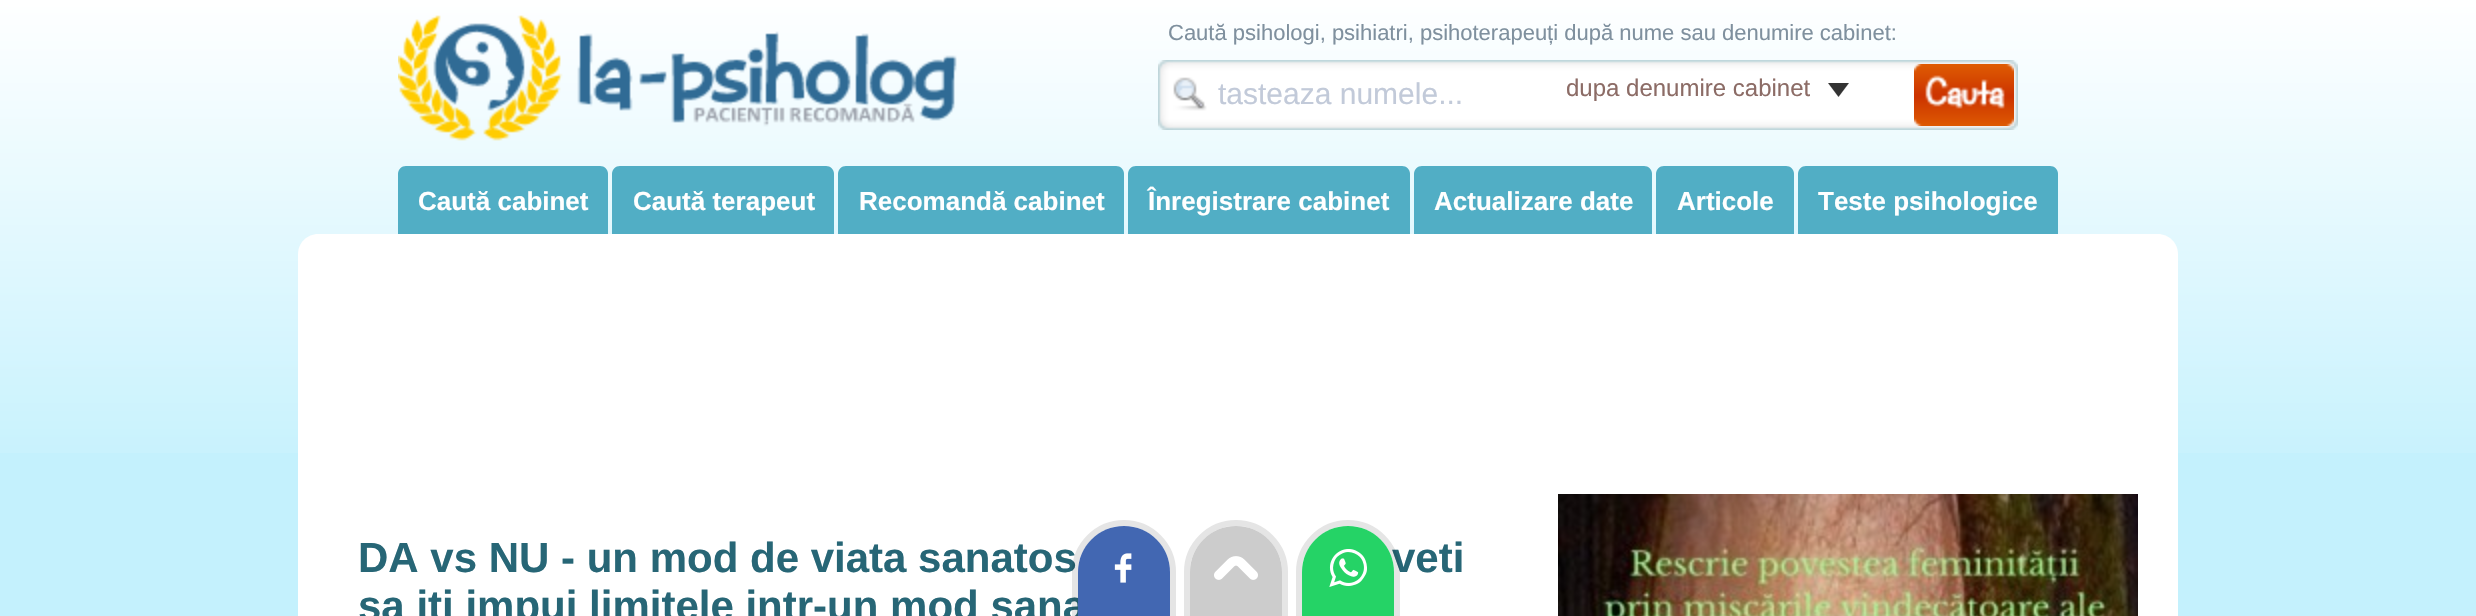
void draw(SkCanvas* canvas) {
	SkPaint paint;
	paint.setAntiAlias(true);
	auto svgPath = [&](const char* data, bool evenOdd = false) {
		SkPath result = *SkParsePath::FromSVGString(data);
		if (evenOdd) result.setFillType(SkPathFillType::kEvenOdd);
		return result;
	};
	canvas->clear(0xffc4f1fd);
	canvas->drawImageRect(SkImages::DeferredFromEncodedData(SkData::MakeFromFileName("img1.png")), SkRect::MakeXYWH(0, 0, 2476, 453), SkSamplingOptions());
	canvas->drawImageRect(SkImages::DeferredFromEncodedData(SkData::MakeFromFileName("img2.png")), SkRect::MakeXYWH(398, 15, 559, 126), SkSamplingOptions());
	SkFont f1(fontMgr->matchFamilyStyle("Liberation Sans", SkFontStyle::Normal()), 22);
	f1.setSubpixel(true);
	paint.setColor(0xff7f909e);
	canvas->drawString("Caută psihologi, psihiatri, psihoterapeuți după nume sau denumire cabinet:", 1168, 40, f1, paint);
	canvas->drawImageRect(SkImages::DeferredFromEncodedData(SkData::MakeFromFileName("img3.png")), SkRect::MakeXYWH(1158, 60, 860, 70), SkSamplingOptions());
	SkFont f2(fontMgr->matchFamilyStyle("Liberation Sans", SkFontStyle::Normal()), 30);
	f2.setSubpixel(true);
	paint.setColor(0xffc2cad9);
	canvas->drawString("tasteaza numele...", 1218, 104, f2, paint);
	canvas->drawImageRect(SkImages::DeferredFromEncodedData(SkData::MakeFromFileName("img4.png")), SkRect::MakeXYWH(1828, 83, 21, 14), SkSamplingOptions());
	SkFont f3(fontMgr->matchFamilyStyle("Liberation Sans", SkFontStyle::Normal()), 24);
	f3.setSubpixel(true);
	paint.setColor(0xff8c6c66);
	canvas->drawString("dupa denumire cabinet", 1566, 96, f3, paint);
	canvas->drawImageRect(SkImages::DeferredFromEncodedData(SkData::MakeFromFileName("img5.png")), SkRect::MakeXYWH(1914, 64, 100, 62), SkSamplingOptions());
	paint.setColor(0xff51aec5);
	canvas->drawPath(svgPath("M406 166H600C604.5 166 608 169.5 608 174V234H398V174C398 169.5 401.5 166 406 166Z"), paint);
	SkFont f4(fontMgr->matchFamilyStyle("Liberation Sans", SkFontStyle::Bold()), 26);
	f4.setSubpixel(true);
	paint.setColor(0xffffffff);
	canvas->drawString("Caută cabinet", 418, 210, f4, paint);
	paint.setColor(0xff51aec5);
	canvas->drawPath(svgPath("M620 166H826C830.5 166 834 169.5 834 174V234H612V174C612 169.5 615.5 166 620 166Z"), paint);
	paint.setColor(0xffffffff);
	canvas->drawString("Caută terapeut", 633, 210, f4, paint);
	paint.setColor(0xff51aec5);
	canvas->drawPath(svgPath("M846 166H1116C1120.5 166 1124 169.5 1124 174V234H838V174C838 169.5 841.5 166 846 166Z"), paint);
	paint.setColor(0xffffffff);
	canvas->drawString("Recomandă cabinet", 859, 210, f4, paint);
	paint.setColor(0xff51aec5);
	canvas->drawPath(svgPath("M1136 166H1402C1406.5 166 1410 169.5 1410 174V234H1128V174C1128 169.5 1131.5 166 1136 166Z"), paint);
	paint.setColor(0xffffffff);
	canvas->drawString("Înregistrare cabinet", 1148, 210, f4, paint);
	paint.setColor(0xff51aec5);
	canvas->drawPath(svgPath("M1422 166H1644C1648.5 166 1652 169.5 1652 174V234H1414V174C1414 169.5 1417.5 166 1422 166Z"), paint);
	paint.setColor(0xffffffff);
	canvas->drawString("Actualizare date", 1434, 210, f4, paint);
	paint.setColor(0xff51aec5);
	canvas->drawPath(svgPath("M1664 166H1786C1790.5 166 1794 169.5 1794 174V234H1656V174C1656 169.5 1659.5 166 1664 166Z"), paint);
	paint.setColor(0xffffffff);
	canvas->drawString("Articole", 1677, 210, f4, paint);
	paint.setColor(0xff51aec5);
	canvas->drawPath(svgPath("M1806 166H2050C2054.5 166 2058 169.5 2058 174V234H1798V174C1798 169.5 1801.5 166 1806 166Z"), paint);
	paint.setColor(0xffffffff);
	canvas->drawString("Teste psihologice", 1818, 210, f4, paint);
	canvas->drawPath(svgPath("M318 234H2158C2169 234 2178 243 2178 254V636H298V254C298 243 307 234 318 234Z"), paint);
	SkFont f5(fontMgr->matchFamilyStyle("Liberation Sans", SkFontStyle::Bold()), 42);
	f5.setSubpixel(true);
	paint.setColor(0xff276676);
	canvas->drawString("DA vs NU - un mod de viata sanatos", 358, 572, f5, paint);
	canvas->drawString("sa iti impui limitele intr-un mod sana", 358, 620, f5, paint);
	paint.setStroke(true);
	paint.setStrokeWidth(6);
	paint.setColor(0x1a000000);
	canvas->drawPath(svgPath("M1124 523C1151 523 1173 545 1173 572V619H1075V572C1075 545 1097 523 1124 523Z"), paint);
	paint.setStroke(false);
	paint.setColor(0xff4267b2);
	canvas->drawPath(svgPath("M1124 526C1149.5 526 1170 546.5 1170 572V616H1078V572C1078 546.5 1098.5 526 1124 526Z"), paint);
	canvas->drawImageRect(SkImages::DeferredFromEncodedData(SkData::MakeFromFileName("img6.png")), SkRect::MakeXYWH(1114, 553, 18, 30), SkSamplingOptions());
	paint.setStroke(true);
	paint.setColor(0x1a000000);
	canvas->drawPath(svgPath("M1236 523C1263 523 1285 545 1285 572V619H1187V572C1187 545 1209 523 1236 523Z"), paint);
	paint.setStroke(false);
	paint.setColor(0xffcccccc);
	canvas->drawPath(svgPath("M1236 526C1261.5 526 1282 546.5 1282 572V616H1190V572C1190 546.5 1210.5 526 1236 526Z"), paint);
	canvas->drawImageRect(SkImages::DeferredFromEncodedData(SkData::MakeFromFileName("img7.png")), SkRect::MakeXYWH(1214, 556, 44, 24), SkSamplingOptions());
	paint.setColor(0xff276676);
	canvas->drawString("veti", 1392, 572, f5, paint);
	paint.setStroke(true);
	paint.setColor(0x1a000000);
	canvas->drawPath(svgPath("M1348 523C1375 523 1397 545 1397 572V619H1299V572C1299 545 1321 523 1348 523Z"), paint);
	paint.setStroke(false);
	paint.setColor(0xff25d366);
	canvas->drawPath(svgPath("M1348 526C1373.5 526 1394 546.5 1394 572V616H1302V572C1302 546.5 1322.5 526 1348 526Z"), paint);
	canvas->drawImageRect(SkImages::DeferredFromEncodedData(SkData::MakeFromFileName("img8.png")), SkRect::MakeXYWH(1329, 549, 38, 38), SkSamplingOptions());
	canvas->drawImageRect(SkImages::DeferredFromEncodedData(SkData::MakeFromFileName("img9.png")), SkRect::MakeXYWH(1558, 494, 580, 122), SkSamplingOptions());
}
